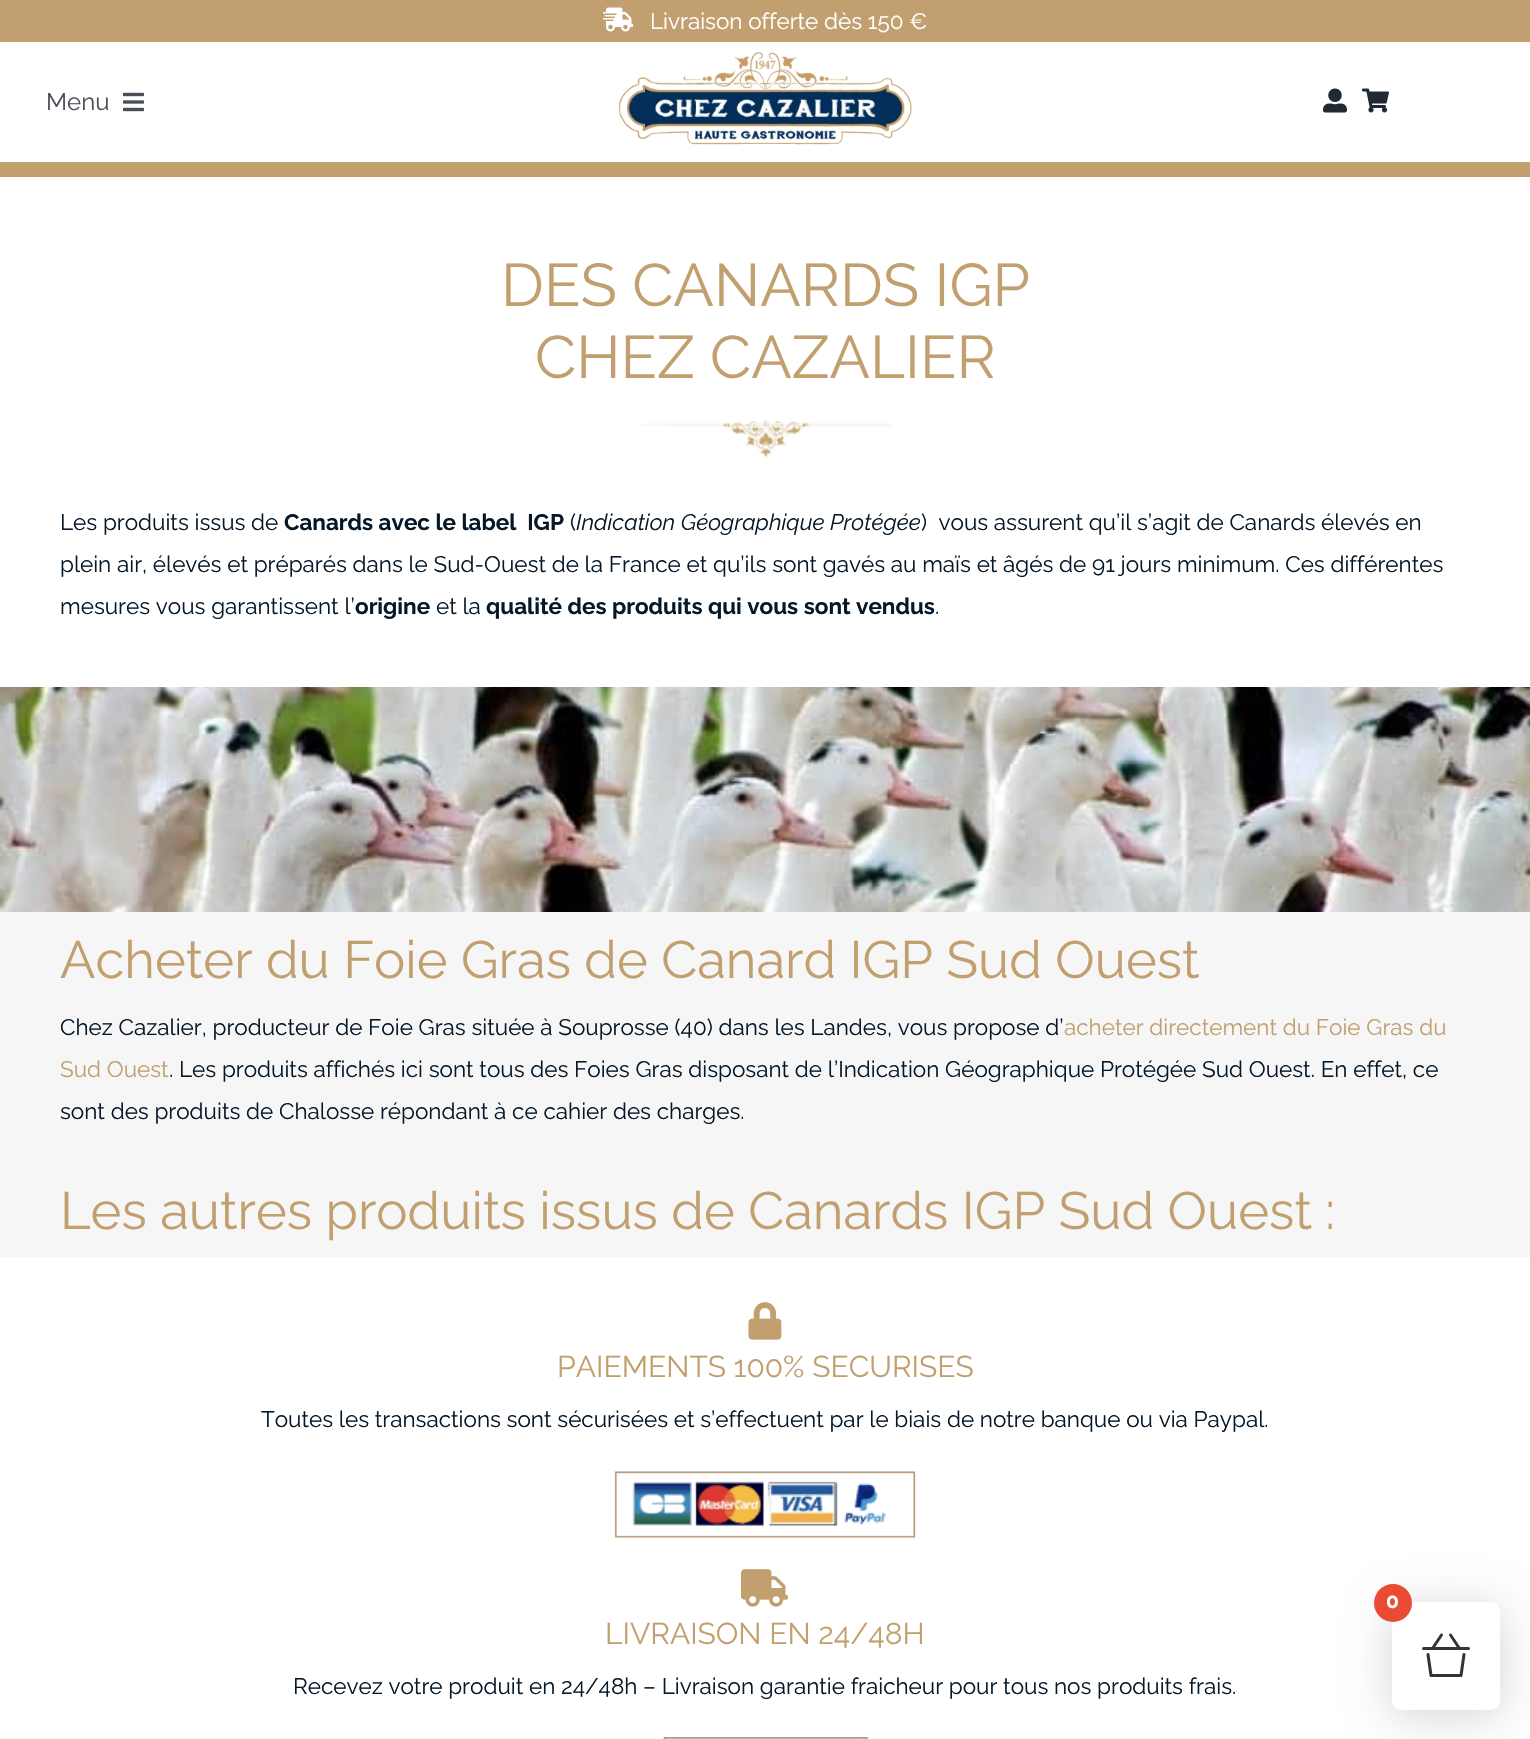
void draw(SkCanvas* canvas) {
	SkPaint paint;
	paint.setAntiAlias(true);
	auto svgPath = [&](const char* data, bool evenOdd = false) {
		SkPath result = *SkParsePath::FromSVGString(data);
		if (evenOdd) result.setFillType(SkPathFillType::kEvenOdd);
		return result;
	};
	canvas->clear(0xffffffff);
	paint.setColor(0xffc29f6f);
	canvas->drawRect(SkRect::MakeXYWH(0, 0, 1530, 42), paint);
	canvas->drawImageRect(SkImages::DeferredFromEncodedData(SkData::MakeFromFileName("img1.png")), SkRect::MakeXYWH(603, 7, 30, 25), SkSamplingOptions());
	SkFont f1(fontMgr->matchFamilyStyle("Raleway", SkFontStyle::Normal()), 22.5);
	f1.setSubpixel(true);
	paint.setColor(0xffffffff);
	canvas->drawString("Livraison offerte dès 150 €", 650, 29, f1, paint);
	SkFont f2(fontMgr->matchFamilyStyle("Raleway", SkFontStyle::Normal()), 24);
	f2.setSubpixel(true);
	paint.setColor(0xff4a4e57);
	canvas->drawString("Menu", 46, 110, f2, paint);
	canvas->drawImageRect(SkImages::DeferredFromEncodedData(SkData::MakeFromFileName("img2.png")), SkRect::MakeXYWH(123, 92, 21, 20), SkSamplingOptions());
	canvas->drawImageRect(SkImages::DeferredFromEncodedData(SkData::MakeFromFileName("img3.png")), SkRect::MakeXYWH(618, 52, 294, 93), SkSamplingOptions());
	canvas->drawImageRect(SkImages::DeferredFromEncodedData(SkData::MakeFromFileName("img4.png")), SkRect::MakeXYWH(1323, 88, 24, 25), SkSamplingOptions());
	canvas->drawImageRect(SkImages::DeferredFromEncodedData(SkData::MakeFromFileName("img5.png")), SkRect::MakeXYWH(1362, 88, 27, 25), SkSamplingOptions());
	paint.setColor(0xffc29f6f);
	canvas->drawRect(SkRect::MakeXYWH(0, 162, 1530, 15), paint);
	SkFont f3(fontMgr->matchFamilyStyle("Raleway", SkFontStyle::Normal()), 60);
	f3.setSubpixel(true);
	canvas->drawString("DES CANARDS IGP", 501, 306, f3, paint);
	canvas->drawString("CHEZ CAZALIER", 535, 378, f3, paint);
	canvas->drawImageRect(SkImages::DeferredFromEncodedData(SkData::MakeFromFileName("img6.png")), SkRect::MakeXYWH(641, 420, 250, 38), SkSamplingOptions());
	paint.setColor(0xff051829);
	canvas->drawString("Les produits issus de", 60, 530, f1, paint);
	SkFont f4(fontMgr->matchFamilyStyle("Raleway", SkFontStyle::Bold()), 22.5);
	f4.setSubpixel(true);
	canvas->drawString("Canards avec le label  IGP", 284, 530, f4, paint);
	canvas->drawString("(", 570, 530, f1, paint);
	SkFont f5(fontMgr->matchFamilyStyle("Raleway", SkFontStyle::Italic()), 22.5);
	f5.setSubpixel(true);
	canvas->drawString("Indication Géographique Protégée", 576, 530, f5, paint);
	canvas->drawString(")  vous assurent qu’il s’agit de Canards élevés en", 921, 530, f1, paint);
	canvas->drawString("plein air, élevés et préparés dans le Sud-Ouest de la France et qu’ils sont gavés au maïs et âgés de 91 jours minimum. Ces différentes", 60, 572, f1, paint);
	canvas->drawString("mesures vous garantissent l’", 60, 614, f1, paint);
	canvas->drawString("origine", 355, 614, f4, paint);
	canvas->drawString("et la", 436, 614, f1, paint);
	canvas->drawString("qualité des produits qui vous sont vendus", 486, 614, f4, paint);
	canvas->drawString(".", 935, 614, f1, paint);
	canvas->drawImageRect(SkImages::DeferredFromEncodedData(SkData::MakeFromFileName("img7.png")), SkRect::MakeXYWH(0, 687, 1530, 225), SkSamplingOptions());
	paint.setColor(0xfff6f6f6);
	canvas->drawRect(SkRect::MakeXYWH(0, 912, 1530, 345), paint);
	SkFont f6(fontMgr->matchFamilyStyle("Raleway", SkFontStyle::Normal()), 52.5);
	f6.setSubpixel(true);
	paint.setColor(0xffc29f6f);
	canvas->drawString("Acheter du Foie Gras de Canard IGP Sud Ouest", 60, 978, f6, paint);
	paint.setColor(0xff051829);
	canvas->drawString("Chez Cazalier, producteur de Foie Gras située à Souprosse (40) dans les Landes, vous propose d’", 60, 1035, f1, paint);
	paint.setColor(0xffc29f6f);
	canvas->drawString("acheter directement du Foie Gras du", 1064, 1035, f1, paint);
	canvas->drawString("Sud Ouest", 60, 1077, f1, paint);
	paint.setColor(0xff051829);
	canvas->drawString(". Les produits affichés ici sont tous des Foies Gras disposant de l’Indication Géographique Protégée Sud Ouest. En effet, ce", 169, 1077, f1, paint);
	canvas->drawString("sont des produits de Chalosse répondant à ce cahier des charges.", 60, 1119, f1, paint);
	paint.setColor(0xffc29f6f);
	canvas->drawString("Les autres produits issus de Canards IGP Sud Ouest :", 60, 1229, f6, paint);
	canvas->drawImageRect(SkImages::DeferredFromEncodedData(SkData::MakeFromFileName("img8.png")), SkRect::MakeXYWH(748, 1302, 34, 38), SkSamplingOptions());
	SkFont f7(fontMgr->matchFamilyStyle("Raleway", SkFontStyle::Normal()), 30);
	f7.setSubpixel(true);
	canvas->drawString("PAIEMENTS 100% SECURISES", 557, 1377, f7, paint);
	paint.setColor(0xff051829);
	canvas->drawString("Toutes les transactions sont sécurisées et s’effectuent par le biais de notre banque ou via Paypal.", 261, 1427, f1, paint);
	canvas->drawImageRect(SkImages::DeferredFromEncodedData(SkData::MakeFromFileName("img9.png")), SkRect::MakeXYWH(614, 1471, 302, 67), SkSamplingOptions());
	canvas->drawImageRect(SkImages::DeferredFromEncodedData(SkData::MakeFromFileName("img10.png")), SkRect::MakeXYWH(741, 1569, 47, 38), SkSamplingOptions());
	paint.setColor(0xffc29f6f);
	canvas->drawString("LIVRAISON EN 24/48H", 605, 1644, f7, paint);
	paint.setColor(0xff051829);
	canvas->drawString("Recevez votre produit en 24/48h – Livraison garantie fraicheur pour tous nos produits frais.", 293, 1694, f1, paint);
	canvas->drawImageRect(SkImages::DeferredFromEncodedData(SkData::MakeFromFileName("img11.png")), SkRect::MakeXYWH(663, 1737, 206, 2), SkSamplingOptions());
	paint.setColor(0x2b000000);
	paint.setMaskFilter(SkMaskFilter::MakeBlur(kNormal_SkBlurStyle, 22.5));
	canvas->drawRoundRect(SkRect::MakeXYWH(1392, 1608, 108, 108), 9, 9, paint);
	paint.setMaskFilter(nullptr);
	paint.setColor(0xffffffff);
	canvas->drawRoundRect(SkRect::MakeXYWH(1392, 1602, 108, 108), 9, 9, paint);
	paint.setColor(0xffe94b35);
	canvas->drawCircle(1393, 1603, 19, paint);
	SkFont f8(fontMgr->matchFamilyStyle("Raleway", SkFontStyle::Bold()), 21);
	f8.setSubpixel(true);
	paint.setColor(0xffffffff);
	canvas->drawString("0", 1386, 1608, f8, paint);
	paint.setStroke(true);
	paint.setStrokeWidth(3);
	paint.setStrokeCap(SkPaint::kRound_Cap);
	paint.setStrokeJoin(SkPaint::kRound_Join);
	paint.setColor(0xff343434);
	canvas->drawPath(svgPath("M1432.5 1648.5L1441.5 1635M1459.5 1648.5L1450.5 1635M1464 1654.5L1461 1675.5H1431L1428 1654.5M1423.5 1648.5H1468.5"), paint);
}
